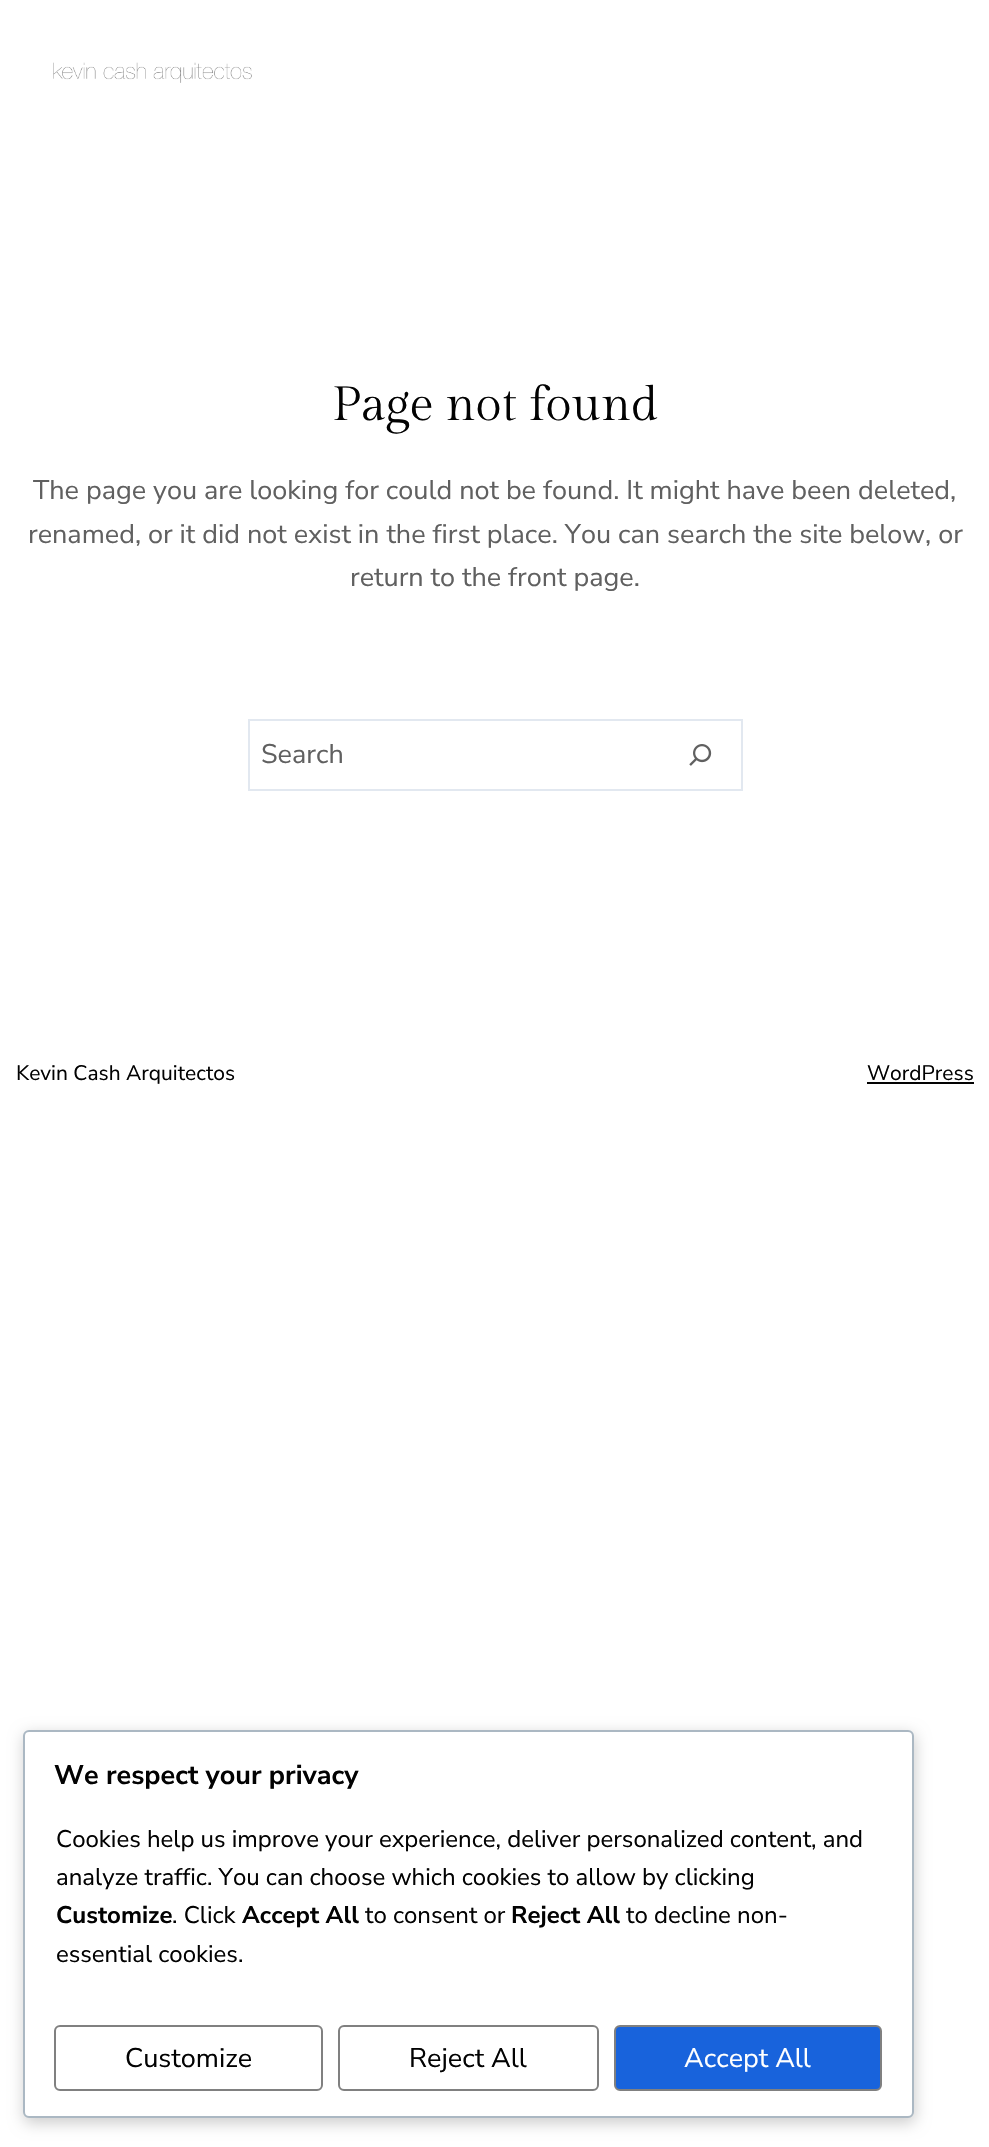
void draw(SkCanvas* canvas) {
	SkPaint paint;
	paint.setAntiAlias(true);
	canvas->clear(0xffffffff);
	canvas->drawImageRect(SkImages::DeferredFromEncodedData(SkData::MakeFromFileName("img1.png")), SkRect::MakeXYWH(53, 62, 199, 21), SkSamplingOptions());
	SkFont f1(fontMgr->matchFamilyStyle("Gilda Display", SkFontStyle::Normal()), 48);
	f1.setSubpixel(true);
	paint.setColor(0xff020202);
	canvas->drawString("Page not found", 332, 420, f1, paint);
	SkFont f2(fontMgr->matchFamilyStyle("Nunito Sans", SkFontStyle::Normal()), 27);
	f2.setSubpixel(true);
	paint.setColor(0xff606060);
	canvas->drawString("The page you are looking for could not be found. It might have been deleted,", 33, 499, f2, paint);
	canvas->drawString("renamed, or it did not exist in the first place. You can search the site below, or", 28, 543, f2, paint);
	canvas->drawString("return to the front page.", 350, 586, f2, paint);
	paint.setStroke(true);
	paint.setStrokeWidth(2);
	paint.setColor(0xffe2e8f0);
	canvas->drawRect(SkRect::MakeXYWH(249, 720, 493, 70), paint);
	paint.setStroke(false);
	paint.setColor(0xff606060);
	canvas->drawString("Search", 261, 763, f2, paint);
	canvas->drawImageRect(SkImages::DeferredFromEncodedData(SkData::MakeFromFileName("img2.png")), SkRect::MakeXYWH(689, 744, 23, 22), SkSamplingOptions());
	SkFont f3(fontMgr->matchFamilyStyle("Nunito Sans", SkFontStyle::Normal()), 21);
	f3.setSubpixel(true);
	paint.setColor(0xff020202);
	canvas->drawString("Kevin Cash Arquitectos", 16, 1080, f3, paint);
	canvas->drawString("WordPress", 867, 1080, f3, paint);
	canvas->drawRect(SkRect::MakeXYWH(867, 1082, 107, 2), paint);
	paint.setColor(0x33000000);
	paint.setMaskFilter(SkMaskFilter::MakeBlur(kNormal_SkBlurStyle, 7.5));
	canvas->drawRoundRect(SkRect::MakeXYWH(24, 1734, 891, 389), 6, 6, paint);
	paint.setMaskFilter(nullptr);
	paint.setColor(0xffffffff);
	canvas->drawRoundRect(SkRect::MakeXYWH(24, 1731, 889, 386), 5, 5, paint);
	paint.setStroke(true);
	paint.setColor(0xffabb8c3);
	canvas->drawRoundRect(SkRect::MakeXYWH(24, 1731, 889, 386), 5, 5, paint);
	SkFont f4(fontMgr->matchFamilyStyle("Nunito Sans", SkFontStyle::Bold()), 27);
	f4.setSubpixel(true);
	paint.setStroke(false);
	paint.setColor(0xff020202);
	canvas->drawString("We respect your privacy", 54, 1784, f4, paint);
	SkFont f5(fontMgr->matchFamilyStyle("Nunito Sans", SkFontStyle::Normal()), 24);
	f5.setSubpixel(true);
	canvas->drawString("Cookies help us improve your experience, deliver personalized content, and", 56, 1847, f5, paint);
	canvas->drawString("analyze traffic. You can choose which cookies to allow by clicking", 56, 1885, f5, paint);
	SkFont f6(fontMgr->matchFamilyStyle("Nunito Sans", SkFontStyle::Bold()), 24);
	f6.setSubpixel(true);
	canvas->drawString("Customize", 56, 1923, f6, paint);
	canvas->drawString(". Click", 172, 1923, f5, paint);
	canvas->drawString("Accept All", 242, 1923, f6, paint);
	canvas->drawString("to consent or", 365, 1923, f5, paint);
	canvas->drawString("Reject All", 511, 1923, f6, paint);
	canvas->drawString("to decline non-", 626, 1923, f5, paint);
	canvas->drawString("essential cookies.", 56, 1962, f5, paint);
	paint.setStroke(true);
	paint.setColor(0xff808080);
	canvas->drawRoundRect(SkRect::MakeXYWH(55, 2026, 267, 64), 5, 5, paint);
	paint.setStroke(false);
	paint.setColor(0xff020202);
	canvas->drawString("Customize", 125, 2067, f2, paint);
	paint.setStroke(true);
	paint.setColor(0xff808080);
	canvas->drawRoundRect(SkRect::MakeXYWH(339, 2026, 259, 64), 5, 5, paint);
	paint.setStroke(false);
	paint.setColor(0xff020202);
	canvas->drawString("Reject All", 409, 2067, f2, paint);
	paint.setColor(0xff1863dc);
	canvas->drawRoundRect(SkRect::MakeXYWH(615, 2026, 266, 64), 5, 5, paint);
	paint.setStroke(true);
	paint.setColor(0xff808080);
	canvas->drawRoundRect(SkRect::MakeXYWH(615, 2026, 266, 64), 5, 5, paint);
	paint.setStroke(false);
	paint.setColor(0xffffffff);
	canvas->drawString("Accept All", 684, 2067, f2, paint);
}
